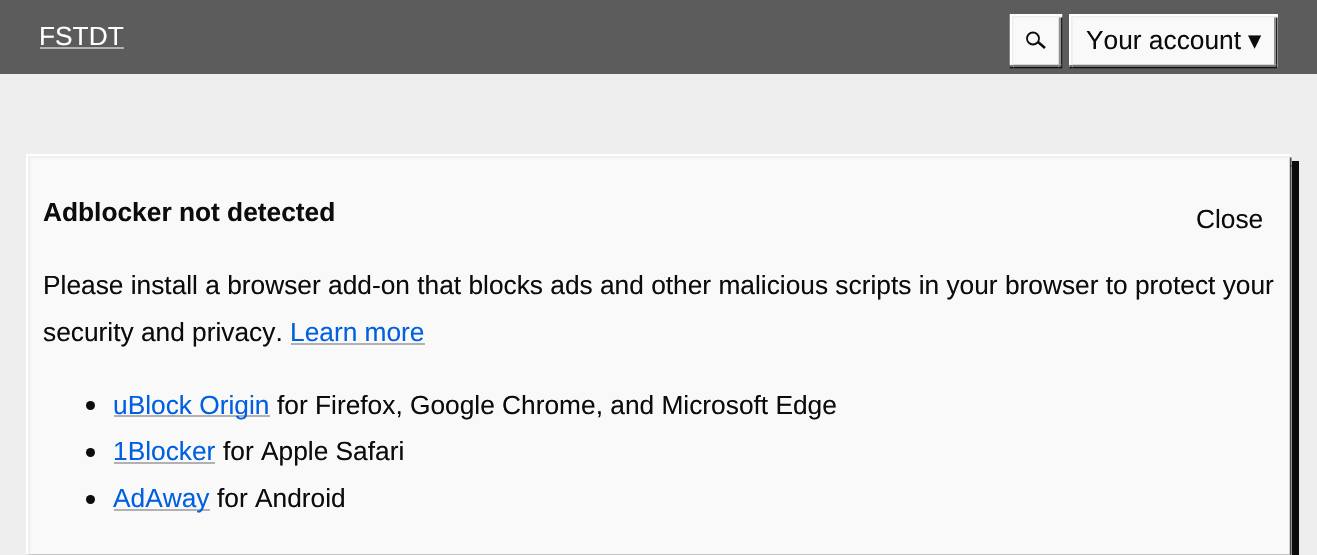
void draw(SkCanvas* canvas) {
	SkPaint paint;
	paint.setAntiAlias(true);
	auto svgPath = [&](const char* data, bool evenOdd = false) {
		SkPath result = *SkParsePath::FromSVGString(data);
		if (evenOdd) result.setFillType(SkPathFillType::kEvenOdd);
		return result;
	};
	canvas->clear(0xff5c5c5c);
	SkFont f1(fontMgr->matchFamilyStyle("Liberation Sans", SkFontStyle::Normal()), 26.3);
	f1.setSubpixel(true);
	paint.setColor(0xffffffff);
	canvas->drawString("FSTDT", 39, 45, f1, paint);
	paint.setColor(0xffb1b1b3);
	canvas->drawRect(SkRect::MakeXYWH(40, 47, 84, 2), paint);
	paint.setColor(0xfff9f9fa);
	canvas->drawRect(SkRect::MakeXYWH(1010, 14, 52, 54), paint);
	canvas->drawImageRect(SkImages::DeferredFromEncodedData(SkData::MakeFromFileName("img1.png")), SkRect::MakeXYWH(1009, 14, 54, 55), SkSamplingOptions());
	paint.setStroke(true);
	paint.setStrokeWidth(1.8);
	paint.setColor(0xff0c0c0d);
	canvas->drawCircle(1033, 38.5, 6, paint);
	paint.setStrokeWidth(2.5);
	canvas->drawPath(svgPath("M1045 48L1038 42"), paint);
	paint.setStroke(false);
	paint.setColor(0xfff9f9fa);
	canvas->drawRect(SkRect::MakeXYWH(1069, 14, 209, 54), paint);
	canvas->drawImageRect(SkImages::DeferredFromEncodedData(SkData::MakeFromFileName("img2.png")), SkRect::MakeXYWH(1069, 14, 209, 55), SkSamplingOptions());
	paint.setColor(0xff0c0c0d);
	canvas->drawString("Your account", 1086, 49, f1, paint);
	SkFont f2(fontMgr->matchFamilyStyle("DejaVu Sans", SkFontStyle::Normal()), 26.3);
	f2.setSubpixel(true);
	canvas->drawString("▾", 1248, 49, f2, paint);
	paint.setColor(0xffeeeeee);
	canvas->drawRect(SkRect::MakeXYWH(0, 74, 1317, 481), paint);
	paint.setColor(0xffaaaaaa);
	canvas->drawRect(SkRect::MakeXYWH(1290, 165, 2, 2), paint);
	paint.setColor(0xff0c0c0d);
	canvas->drawPath(svgPath("M33 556V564H1299V161H1292V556Z"), paint);
	paint.setColor(0xfff9f9fa);
	canvas->drawRect(SkRect::MakeXYWH(30, 158, 1260, 397), paint);
	canvas->drawImageRect(SkImages::DeferredFromEncodedData(SkData::MakeFromFileName("img3.png")), SkRect::MakeXYWH(26, 153, 1266, 402), SkSamplingOptions());
	SkFont f3(fontMgr->matchFamilyStyle("Liberation Sans", SkFontStyle::Bold()), 26.3);
	f3.setSubpixel(true);
	paint.setColor(0xff0c0c0d);
	canvas->drawString("Adblocker not detected", 43, 221, f3, paint);
	canvas->drawString("Close", 1196, 228, f1, paint);
	canvas->drawString("Please install a browser add-on that blocks ads and other malicious scripts in your browser to protect your", 43, 294, f1, paint);
	canvas->drawString("security and privacy.", 43, 341, f1, paint);
	paint.setColor(0xff0060df);
	canvas->drawString("Learn more", 290, 341, f1, paint);
	paint.setColor(0xffb1b1b3);
	canvas->drawRect(SkRect::MakeXYWH(291, 343, 134, 2), paint);
	paint.setColor(0xff0c0c0d);
	canvas->drawCircle(90.5, 405.5, 4.5, paint);
	paint.setColor(0xffb1b1b3);
	canvas->drawRect(SkRect::MakeXYWH(114, 415, 156, 2), paint);
	paint.setColor(0xff0060df);
	canvas->drawString("uBlock Origin", 113, 414, f1, paint);
	paint.setColor(0xff0c0c0d);
	canvas->drawString("for Firefox, Google Chrome, and Microsoft Edge", 277, 414, f1, paint);
	canvas->drawCircle(90.5, 452.5, 4.5, paint);
	paint.setColor(0xff0060df);
	canvas->drawString("1Blocker", 113, 460, f1, paint);
	paint.setColor(0xffb1b1b3);
	canvas->drawRect(SkRect::MakeXYWH(114, 462, 101, 2), paint);
	paint.setColor(0xff0c0c0d);
	canvas->drawString("for Apple Safari", 223, 460, f1, paint);
	canvas->drawCircle(90.5, 499.5, 4.5, paint);
	paint.setColor(0xffb1b1b3);
	canvas->drawRect(SkRect::MakeXYWH(114, 509, 96, 2), paint);
	paint.setColor(0xff0060df);
	canvas->drawString("AdAway", 113, 507, f1, paint);
	paint.setColor(0xff0c0c0d);
	canvas->drawString("for Android", 217, 507, f1, paint);
}
